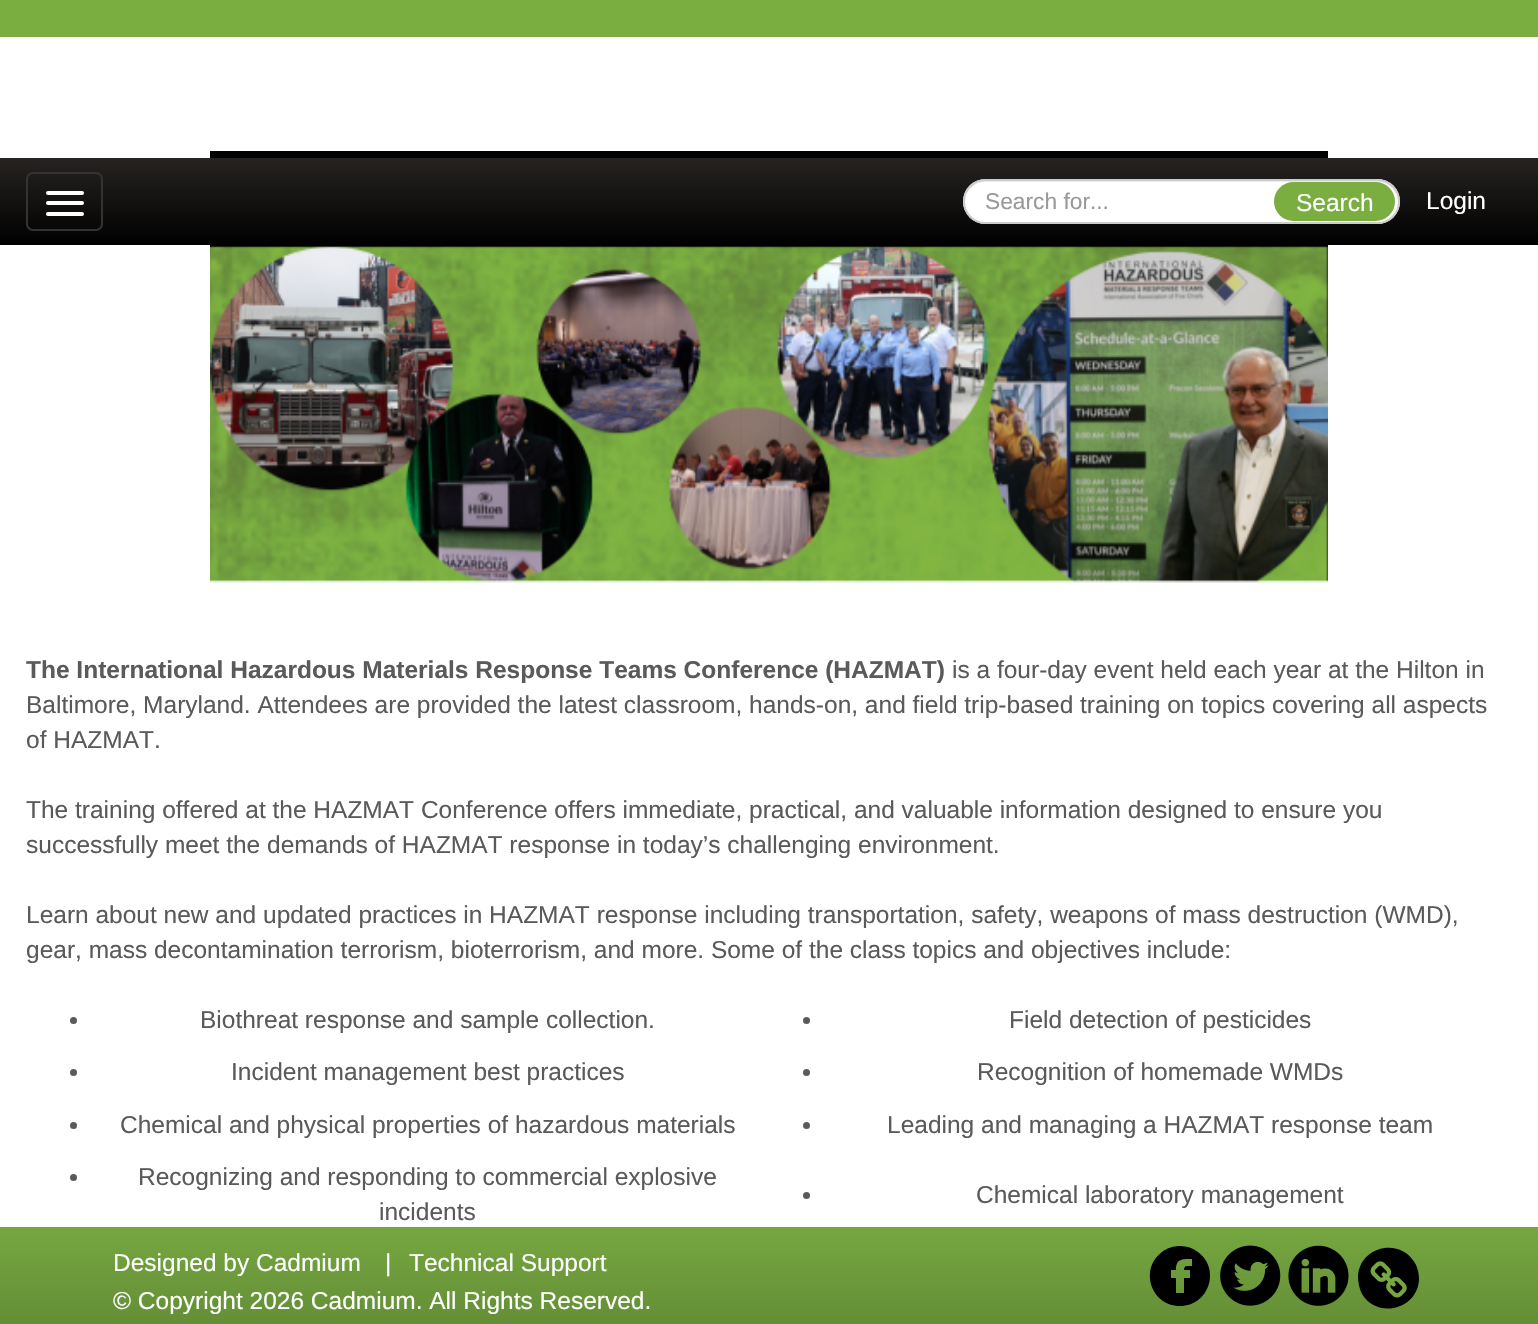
void draw(SkCanvas* canvas) {
	SkPaint paint;
	paint.setAntiAlias(true);
	auto svgPath = [&](const char* data, bool evenOdd = false) {
		SkPath result = *SkParsePath::FromSVGString(data);
		if (evenOdd) result.setFillType(SkPathFillType::kEvenOdd);
		return result;
	};
	canvas->clear(0xffffffff);
	paint.setColor(0xff7bae41);
	canvas->drawRect(SkRect::MakeXYWH(0, 0, 1538, 37), paint);
	canvas->drawImageRect(SkImages::DeferredFromEncodedData(SkData::MakeFromFileName("img1.png")), SkRect::MakeXYWH(210, 151, 1118, 432), SkSamplingOptions());
	{
		const SkColor colors[] = {0xff272422, 0xff000000};
		const float stops[] = {0, 1};
		const SkPoint ends[] = {{769, 157}, {769, 245}};
		paint.setShader(SkGradientShader::MakeLinear(ends, colors, stops, 2, SkTileMode::kClamp));
		paint.setAlpha(255);
	}
	canvas->drawRect(SkRect::MakeXYWH(0, 158, 1538, 87), paint);
	paint.setStroke(true);
	paint.setStrokeWidth(2);
	paint.setShader(nullptr);
	paint.setColor(0xff333333);
	canvas->drawRoundRect(SkRect::MakeXYWH(27, 173, 75, 57), 6, 6, paint);
	paint.setStroke(false);
	paint.setColor(0xffffffff);
	canvas->drawRoundRect(SkRect::MakeXYWH(46, 191, 38, 4), 2, 2, paint);
	canvas->drawRoundRect(SkRect::MakeXYWH(46, 201, 38, 4), 2, 2, paint);
	canvas->drawRoundRect(SkRect::MakeXYWH(46, 212, 38, 4), 2, 2, paint);
	canvas->drawRoundRect(SkRect::MakeXYWH(963, 179, 437, 45), 22.5, 22.5, paint);
	paint.setColor(0xffececec);
	canvas->drawPath(svgPath("M985 182H1377C1389 182 1397 190 1398 202C1399 190 1389 180 1377 180H985C973 180 963 190 964 202C965 191 974 182 985 182Z"), paint);
	paint.setStroke(true);
	paint.setColor(0xffcccccc);
	canvas->drawRoundRect(SkRect::MakeXYWH(964, 180, 435, 43), 21.5, 21.5, paint);
	SkFont f1(fontMgr->matchFamilyStyle("Liberation Sans", SkFontStyle::Normal()), 22.75);
	f1.setSubpixel(true);
	paint.setStroke(false);
	paint.setColor(0xff999999);
	canvas->drawString("Search for...", 985, 209, f1, paint);
	paint.setColor(0xff7bae41);
	canvas->drawRoundRect(SkRect::MakeXYWH(1274, 182, 121, 39), 19.5, 19.5, paint);
	SkFont f2(fontMgr->matchFamilyStyle("Liberation Sans", SkFontStyle::Normal()), 24.5);
	f2.setSubpixel(true);
	paint.setColor(0xffffffff);
	canvas->drawString("Search", 1296, 211, f2, paint);
	canvas->drawString("Login", 1426, 209, f2, paint);
	SkFont f3(fontMgr->matchFamilyStyle("Liberation Sans", SkFontStyle::Bold()), 24.5);
	f3.setSubpixel(true);
	paint.setColor(0xff5a5a5a);
	canvas->drawString("The International Hazardous Materials Response Teams Conference (HAZMAT)", 26, 678, f3, paint);
	canvas->drawString("is a four-day event held each year at the Hilton in", 952, 678, f2, paint);
	canvas->drawString("Baltimore, Maryland. Attendees are provided the latest classroom, hands-on, and field trip-based training on topics covering all aspects", 26, 713, f2, paint);
	canvas->drawString("of HAZMAT.", 26, 748, f2, paint);
	canvas->drawString("The training offered at the HAZMAT Conference offers immediate, practical, and valuable information designed to ensure you", 26, 818, f2, paint);
	canvas->drawString("successfully meet the demands of HAZMAT response in today’s challenging environment.", 26, 853, f2, paint);
	canvas->drawString("Learn about new and updated practices in HAZMAT response including transportation, safety, weapons of mass destruction (WMD),", 26, 923, f2, paint);
	canvas->drawString("gear, mass decontamination terrorism, bioterrorism, and more. Some of the class topics and objectives include:", 26, 958, f2, paint);
	canvas->drawCircle(73.5, 1020.5, 3.5, paint);
	canvas->drawString("Biothreat response and sample collection.", 200, 1028, f2, paint);
	canvas->drawCircle(806.5, 1020.5, 3.5, paint);
	canvas->drawString("Field detection of pesticides", 1009, 1028, f2, paint);
	canvas->drawCircle(73.5, 1072.5, 3.5, paint);
	canvas->drawString("Incident management best practices", 231, 1080, f2, paint);
	canvas->drawCircle(806.5, 1072.5, 3.5, paint);
	canvas->drawString("Recognition of homemade WMDs", 977, 1080, f2, paint);
	canvas->drawCircle(73.5, 1125.5, 3.5, paint);
	canvas->drawString("Chemical and physical properties of hazardous materials", 120, 1133, f2, paint);
	canvas->drawCircle(806.5, 1125.5, 3.5, paint);
	canvas->drawString("Leading and managing a HAZMAT response team", 887, 1133, f2, paint);
	canvas->drawCircle(73.5, 1177.5, 3.5, paint);
	canvas->drawString("Recognizing and responding to commercial explosive", 138, 1185, f2, paint);
	canvas->drawString("incidents", 379, 1220, f2, paint);
	canvas->drawCircle(806.5, 1195.5, 3.5, paint);
	canvas->drawString("Chemical laboratory management", 976, 1203, f2, paint);
	{
		const SkColor colors[] = {0xff76a740, 0xff648e36};
		const float stops[] = {0, 1};
		const SkPoint ends[] = {{769, 1227}, {769, 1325}};
		paint.setShader(SkGradientShader::MakeLinear(ends, colors, stops, 2, SkTileMode::kClamp));
		paint.setAlpha(255);
	}
	canvas->drawRect(SkRect::MakeXYWH(0, 1227, 1538, 97), paint);
	paint.setShader(nullptr);
	paint.setColor(0xffffffff);
	canvas->drawString("Designed by Cadmium", 113, 1271, f2, paint);
	canvas->drawString("|", 385, 1271, f2, paint);
	canvas->drawString("Technical Support", 409, 1271, f2, paint);
	canvas->drawString("© Copyright 2026 Cadmium. All Rights Reserved.", 113, 1309, f2, paint);
	paint.setColor(0xff000000);
	canvas->drawPath(svgPath("M1180 1246C1187 1246 1193 1248 1198 1252C1221 1269 1209 1306 1180 1306C1151 1306 1139 1269 1162 1252C1167 1248 1174 1246 1180 1246ZM1192 1259C1181 1259 1176 1259 1176 1270H1171V1278H1176V1293H1184V1278H1190V1270H1184C1184 1265 1187 1266 1192 1266Z"), paint);
	canvas->drawImageRect(SkImages::DeferredFromEncodedData(SkData::MakeFromFileName("img2.png")), SkRect::MakeXYWH(1220, 1245, 61, 61), SkSamplingOptions());
	canvas->drawImageRect(SkImages::DeferredFromEncodedData(SkData::MakeFromFileName("img3.png")), SkRect::MakeXYWH(1288, 1245, 61, 61), SkSamplingOptions());
	canvas->drawPath(svgPath("M1415 1263C1418 1268 1419 1274 1419 1280C1417 1310 1377 1319 1362 1294C1359 1288 1358 1282 1358 1276C1360 1246 1400 1237 1415 1263Z"), paint);
	canvas->drawImageRect(SkImages::DeferredFromEncodedData(SkData::MakeFromFileName("img4.png")), SkRect::MakeXYWH(1370, 1261, 37, 37), SkSamplingOptions());
}
